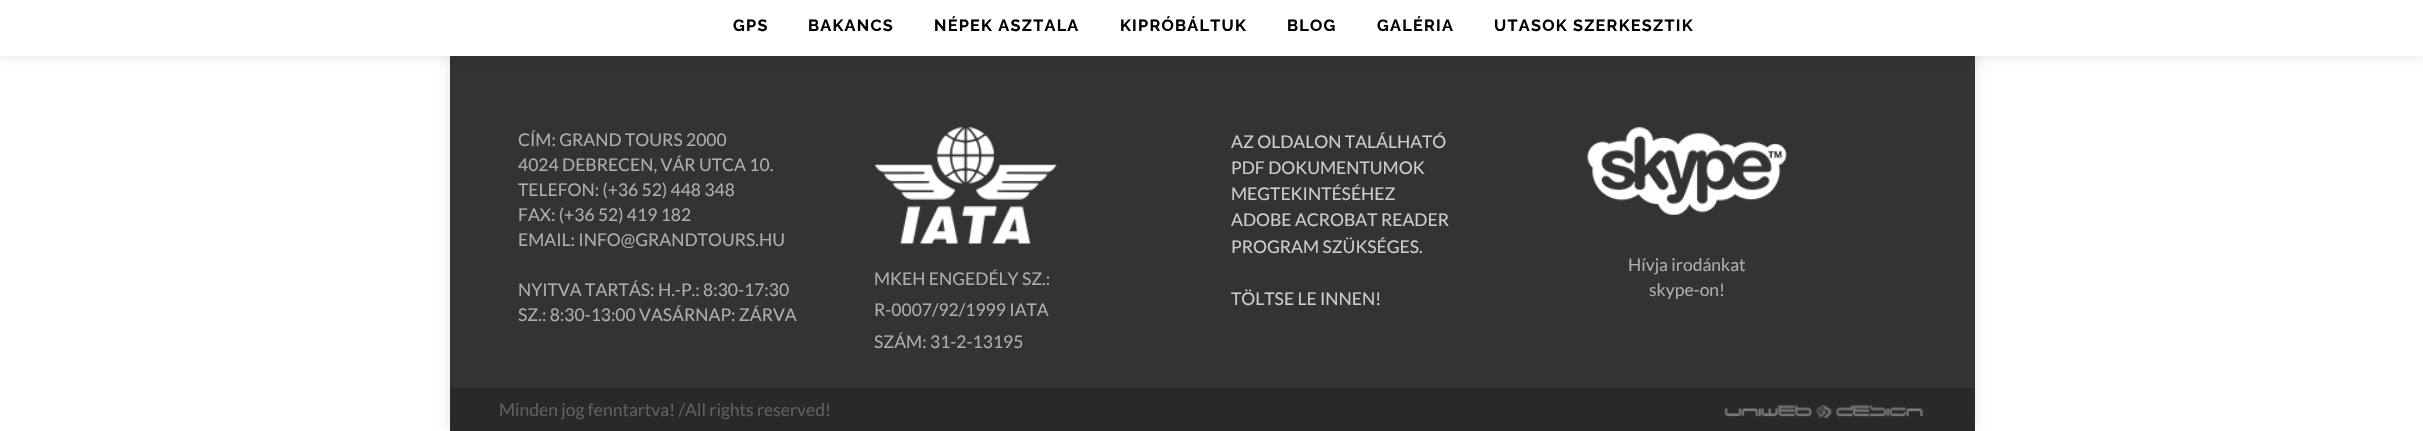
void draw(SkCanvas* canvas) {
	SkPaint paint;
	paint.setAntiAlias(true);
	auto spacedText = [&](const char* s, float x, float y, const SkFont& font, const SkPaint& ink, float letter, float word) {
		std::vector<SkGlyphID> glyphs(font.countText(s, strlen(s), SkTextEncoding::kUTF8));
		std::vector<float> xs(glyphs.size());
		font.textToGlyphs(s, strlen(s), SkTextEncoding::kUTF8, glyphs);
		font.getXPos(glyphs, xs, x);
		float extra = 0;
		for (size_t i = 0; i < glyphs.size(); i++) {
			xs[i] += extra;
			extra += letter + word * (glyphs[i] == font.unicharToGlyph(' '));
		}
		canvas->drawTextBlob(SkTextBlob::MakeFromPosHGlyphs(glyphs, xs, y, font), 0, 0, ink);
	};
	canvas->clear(0xffffffff);
	paint.setColor(0x1a000000);
	paint.setMaskFilter(SkMaskFilter::MakeBlur(kNormal_SkBlurStyle, 6));
	canvas->drawRect(SkRect::MakeXYWH(450, -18, 1525, 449), paint);
	paint.setMaskFilter(nullptr);
	paint.setColor(0xff333333);
	canvas->drawRect(SkRect::MakeXYWH(450, 56, 1525, 332), paint);
	paint.setColor(0x1a000000);
	paint.setMaskFilter(SkMaskFilter::MakeBlur(kNormal_SkBlurStyle, 6));
	canvas->drawRect(SkRect::MakeXYWH(0, 0, 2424, 56), paint);
	paint.setMaskFilter(nullptr);
	paint.setColor(0xffffffff);
	canvas->drawRect(SkRect::MakeXYWH(0, 0, 2423, 56), paint);
	SkFont f1(fontMgr->matchFamilyStyle("Raleway", SkFontStyle::Bold()), 16.25);
	f1.setSubpixel(true);
	paint.setColor(0xff000000);
	spacedText("GPS", 733, 31, f1, paint, 1.25, 0);
	spacedText("BAKANCS", 808, 31, f1, paint, 1.25, 0);
	spacedText("NÉPEK ASZTALA", 934, 31, f1, paint, 1.25, 0);
	spacedText("KIPRÓBÁLTUK", 1120, 31, f1, paint, 1.25, 0);
	spacedText("BLOG", 1287, 31, f1, paint, 1.25, 0);
	spacedText("GALÉRIA", 1377, 31, f1, paint, 1.25, 0);
	spacedText("UTASOK SZERKESZTIK", 1494, 31, f1, paint, 1.25, 0);
	SkFont f2(fontMgr->matchFamilyStyle("Lato", SkFontStyle::Normal()), 17.5);
	f2.setSubpixel(true);
	paint.setColor(0xffadadad);
	canvas->drawString("CÍM: GRAND TOURS 2000", 518, 146, f2, paint);
	canvas->drawString("4024 DEBRECEN, VÁR UTCA 10.", 518, 171, f2, paint);
	canvas->drawString("TELEFON: (+36 52) 448 348", 518, 196, f2, paint);
	canvas->drawString("FAX: (+36 52) 419 182", 518, 221, f2, paint);
	canvas->drawString("EMAIL: INFO@GRANDTOURS.HU", 518, 246, f2, paint);
	canvas->drawString("NYITVA TARTÁS: H.-P.: 8:30-17:30", 518, 296, f2, paint);
	canvas->drawString("SZ.: 8:30-13:00 VASÁRNAP: ZÁRVA", 518, 321, f2, paint);
	canvas->drawImageRect(SkImages::DeferredFromEncodedData(SkData::MakeFromFileName("img1.png")), SkRect::MakeXYWH(875, 127, 182, 117), SkSamplingOptions());
	canvas->drawString("MKEH ENGEDÉLY SZ.:", 874, 285, f2, paint);
	canvas->drawString("R-0007/92/1999 IATA", 874, 316, f2, paint);
	canvas->drawString("SZÁM: 31-2-13195", 874, 348, f2, paint);
	paint.setColor(0xffcccccc);
	canvas->drawString("AZ OLDALON TALÁLHATÓ", 1231, 148, f2, paint);
	canvas->drawString("PDF DOKUMENTUMOK", 1231, 174, f2, paint);
	canvas->drawString("MEGTEKINTÉSÉHEZ", 1231, 200, f2, paint);
	canvas->drawString("ADOBE ACROBAT READER", 1231, 226, f2, paint);
	canvas->drawString("PROGRAM SZÜKSÉGES.", 1231, 253, f2, paint);
	canvas->drawString("TÖLTSE LE INNEN!", 1231, 305, f2, paint);
	canvas->drawImageRect(SkImages::DeferredFromEncodedData(SkData::MakeFromFileName("img2.png")), SkRect::MakeXYWH(1587, 127, 200, 88), SkSamplingOptions());
	paint.setColor(0xffadadad);
	canvas->drawString("Hívja irodánkat", 1628, 271, f2, paint);
	canvas->drawString("skype-on!", 1649, 296, f2, paint);
	paint.setColor(0xff292929);
	canvas->drawRect(SkRect::MakeXYWH(450, 388, 1525, 43), paint);
	paint.setColor(0xff5f5f5f);
	canvas->drawString("Minden jog fenntartva! /All rights reserved!", 499, 416, f2, paint);
	canvas->drawImageRect(SkImages::DeferredFromEncodedData(SkData::MakeFromFileName("img3.png")), SkRect::MakeXYWH(1724, 404, 200, 15), SkSamplingOptions());
}
